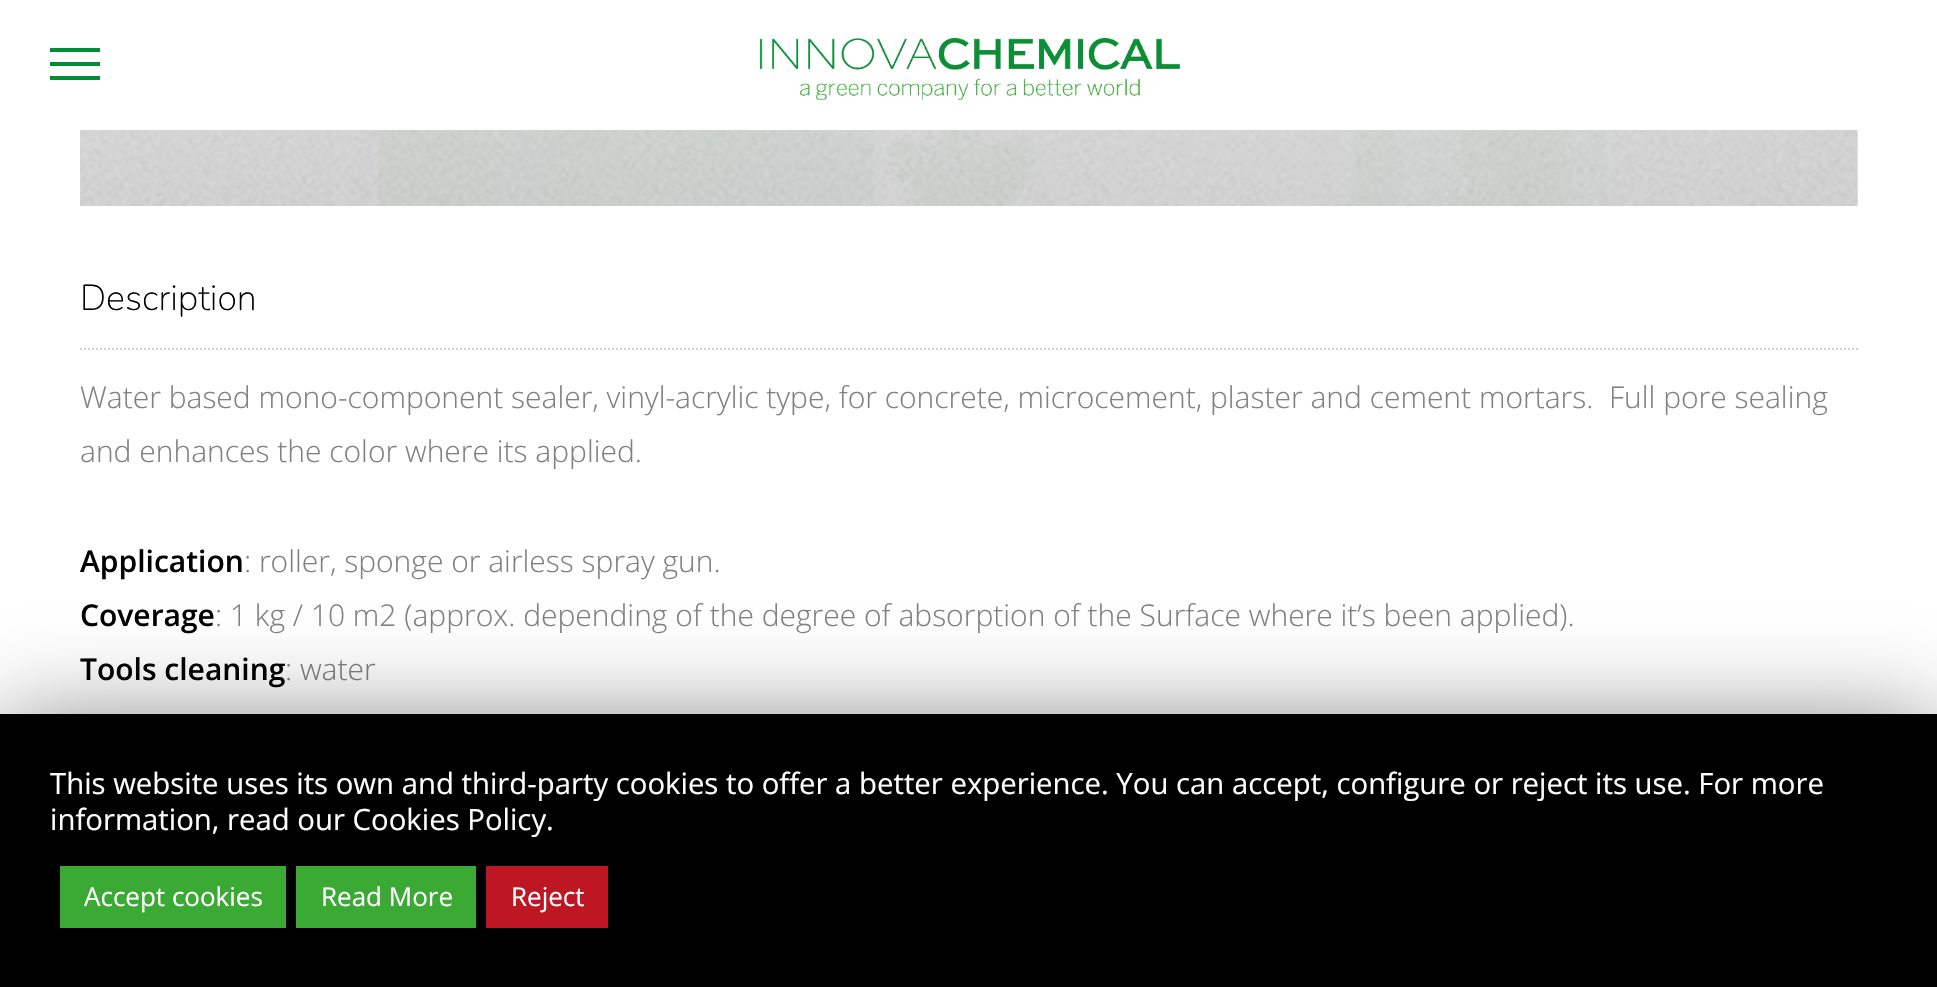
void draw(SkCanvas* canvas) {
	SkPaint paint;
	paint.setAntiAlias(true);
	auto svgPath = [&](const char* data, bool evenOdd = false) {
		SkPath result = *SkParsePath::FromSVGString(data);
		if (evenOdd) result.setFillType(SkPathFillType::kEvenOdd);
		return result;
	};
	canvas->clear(0xffffffff);
	paint.setColor(0xff008d36);
	canvas->drawRect(SkRect::MakeXYWH(50, 62, 50, 4), paint);
	canvas->drawRect(SkRect::MakeXYWH(50, 48, 50, 4), paint);
	canvas->drawRect(SkRect::MakeXYWH(50, 76, 50, 4), paint);
	canvas->drawImageRect(SkImages::DeferredFromEncodedData(SkData::MakeFromFileName("img1.png")), SkRect::MakeXYWH(759, 38, 421, 63), SkSamplingOptions());
	canvas->drawImageRect(SkImages::DeferredFromEncodedData(SkData::MakeFromFileName("img2.png")), SkRect::MakeXYWH(80, 130, 1778, 76), SkSamplingOptions());
	SkFont f1(fontMgr->matchFamilyStyle("Nunito", SkFontStyle(200, SkFontStyle::kNormal_Width, SkFontStyle::kUpright_Slant)), 36);
	f1.setSubpixel(true);
	paint.setColor(0xff000000);
	canvas->drawString("Description", 80, 310, f1, paint);
	paint.setStroke(true);
	paint.setStrokeWidth(2);
	paint.setColor(0xffd1d1d1);
	paint.setPathEffect(SkDashPathEffect::Make({{2, 2}}, 0));
	canvas->drawPath(svgPath("M80 349H1858"), paint);
	paint.setPathEffect(nullptr);
	SkFont f2(fontMgr->matchFamilyStyle("Open Sans", SkFontStyle(300, SkFontStyle::kNormal_Width, SkFontStyle::kUpright_Slant)), 30);
	f2.setSubpixel(true);
	paint.setStroke(false);
	paint.setColor(0xff808080);
	canvas->drawString("Water based mono-component sealer, vinyl-acrylic type, for concrete, microcement, plaster and cement mortars.  Full pore sealing", 80, 408, f2, paint);
	canvas->drawString("and enhances the color where its applied.", 80, 462, f2, paint);
	SkFont f3(fontMgr->matchFamilyStyle("Open Sans", SkFontStyle(600, SkFontStyle::kNormal_Width, SkFontStyle::kUpright_Slant)), 30);
	f3.setSubpixel(true);
	paint.setColor(0xff000000);
	canvas->drawString("Application", 80, 572, f3, paint);
	paint.setColor(0xff808080);
	canvas->drawString(": roller, sponge or airless spray gun.", 244, 572, f2, paint);
	paint.setColor(0xff000000);
	canvas->drawString("Coverage", 80, 626, f3, paint);
	paint.setColor(0xff808080);
	canvas->drawString(": 1 kg / 10 m2 (approx. depending of the degree of absorption of the Surface where it’s been applied).", 215, 626, f2, paint);
	paint.setColor(0xff000000);
	canvas->drawString("Tools cleaning", 80, 680, f3, paint);
	paint.setColor(0xff808080);
	canvas->drawString(": water", 285, 680, f2, paint);
	paint.setColor(0x80000000);
	paint.setMaskFilter(SkMaskFilter::MakeBlur(kNormal_SkBlurStyle, 50));
	canvas->drawRect(SkRect::MakeXYWH(0, 724, 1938, 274), paint);
	paint.setMaskFilter(nullptr);
	paint.setColor(0xff000000);
	canvas->drawRect(SkRect::MakeXYWH(0, 714, 1937, 273), paint);
	SkFont f4(fontMgr->matchFamilyStyle("Open Sans", SkFontStyle::Normal()), 29.33);
	f4.setSubpixel(true);
	paint.setColor(0xffffffff);
	canvas->drawString("This website uses its own and third-party cookies to offer a better experience. You can accept, configure or reject its use. For more", 50, 794, f4, paint);
	canvas->drawString("information, read our Cookies Policy.", 50, 830, f4, paint);
	paint.setColor(0xff3aaa35);
	canvas->drawRect(SkRect::MakeXYWH(60, 866, 226, 62), paint);
	SkFont f5(fontMgr->matchFamilyStyle("Open Sans", SkFontStyle::Normal()), 26);
	f5.setSubpixel(true);
	paint.setColor(0xffffffff);
	canvas->drawString("Accept cookies", 84, 906, f5, paint);
	paint.setColor(0xff3aaa35);
	canvas->drawRect(SkRect::MakeXYWH(296, 866, 180, 62), paint);
	paint.setColor(0xffffffff);
	canvas->drawString("Read More", 321, 906, f5, paint);
	paint.setColor(0xffbe1622);
	canvas->drawRect(SkRect::MakeXYWH(486, 866, 122, 62), paint);
	paint.setColor(0xffffffff);
	canvas->drawString("Reject", 511, 906, f5, paint);
}
